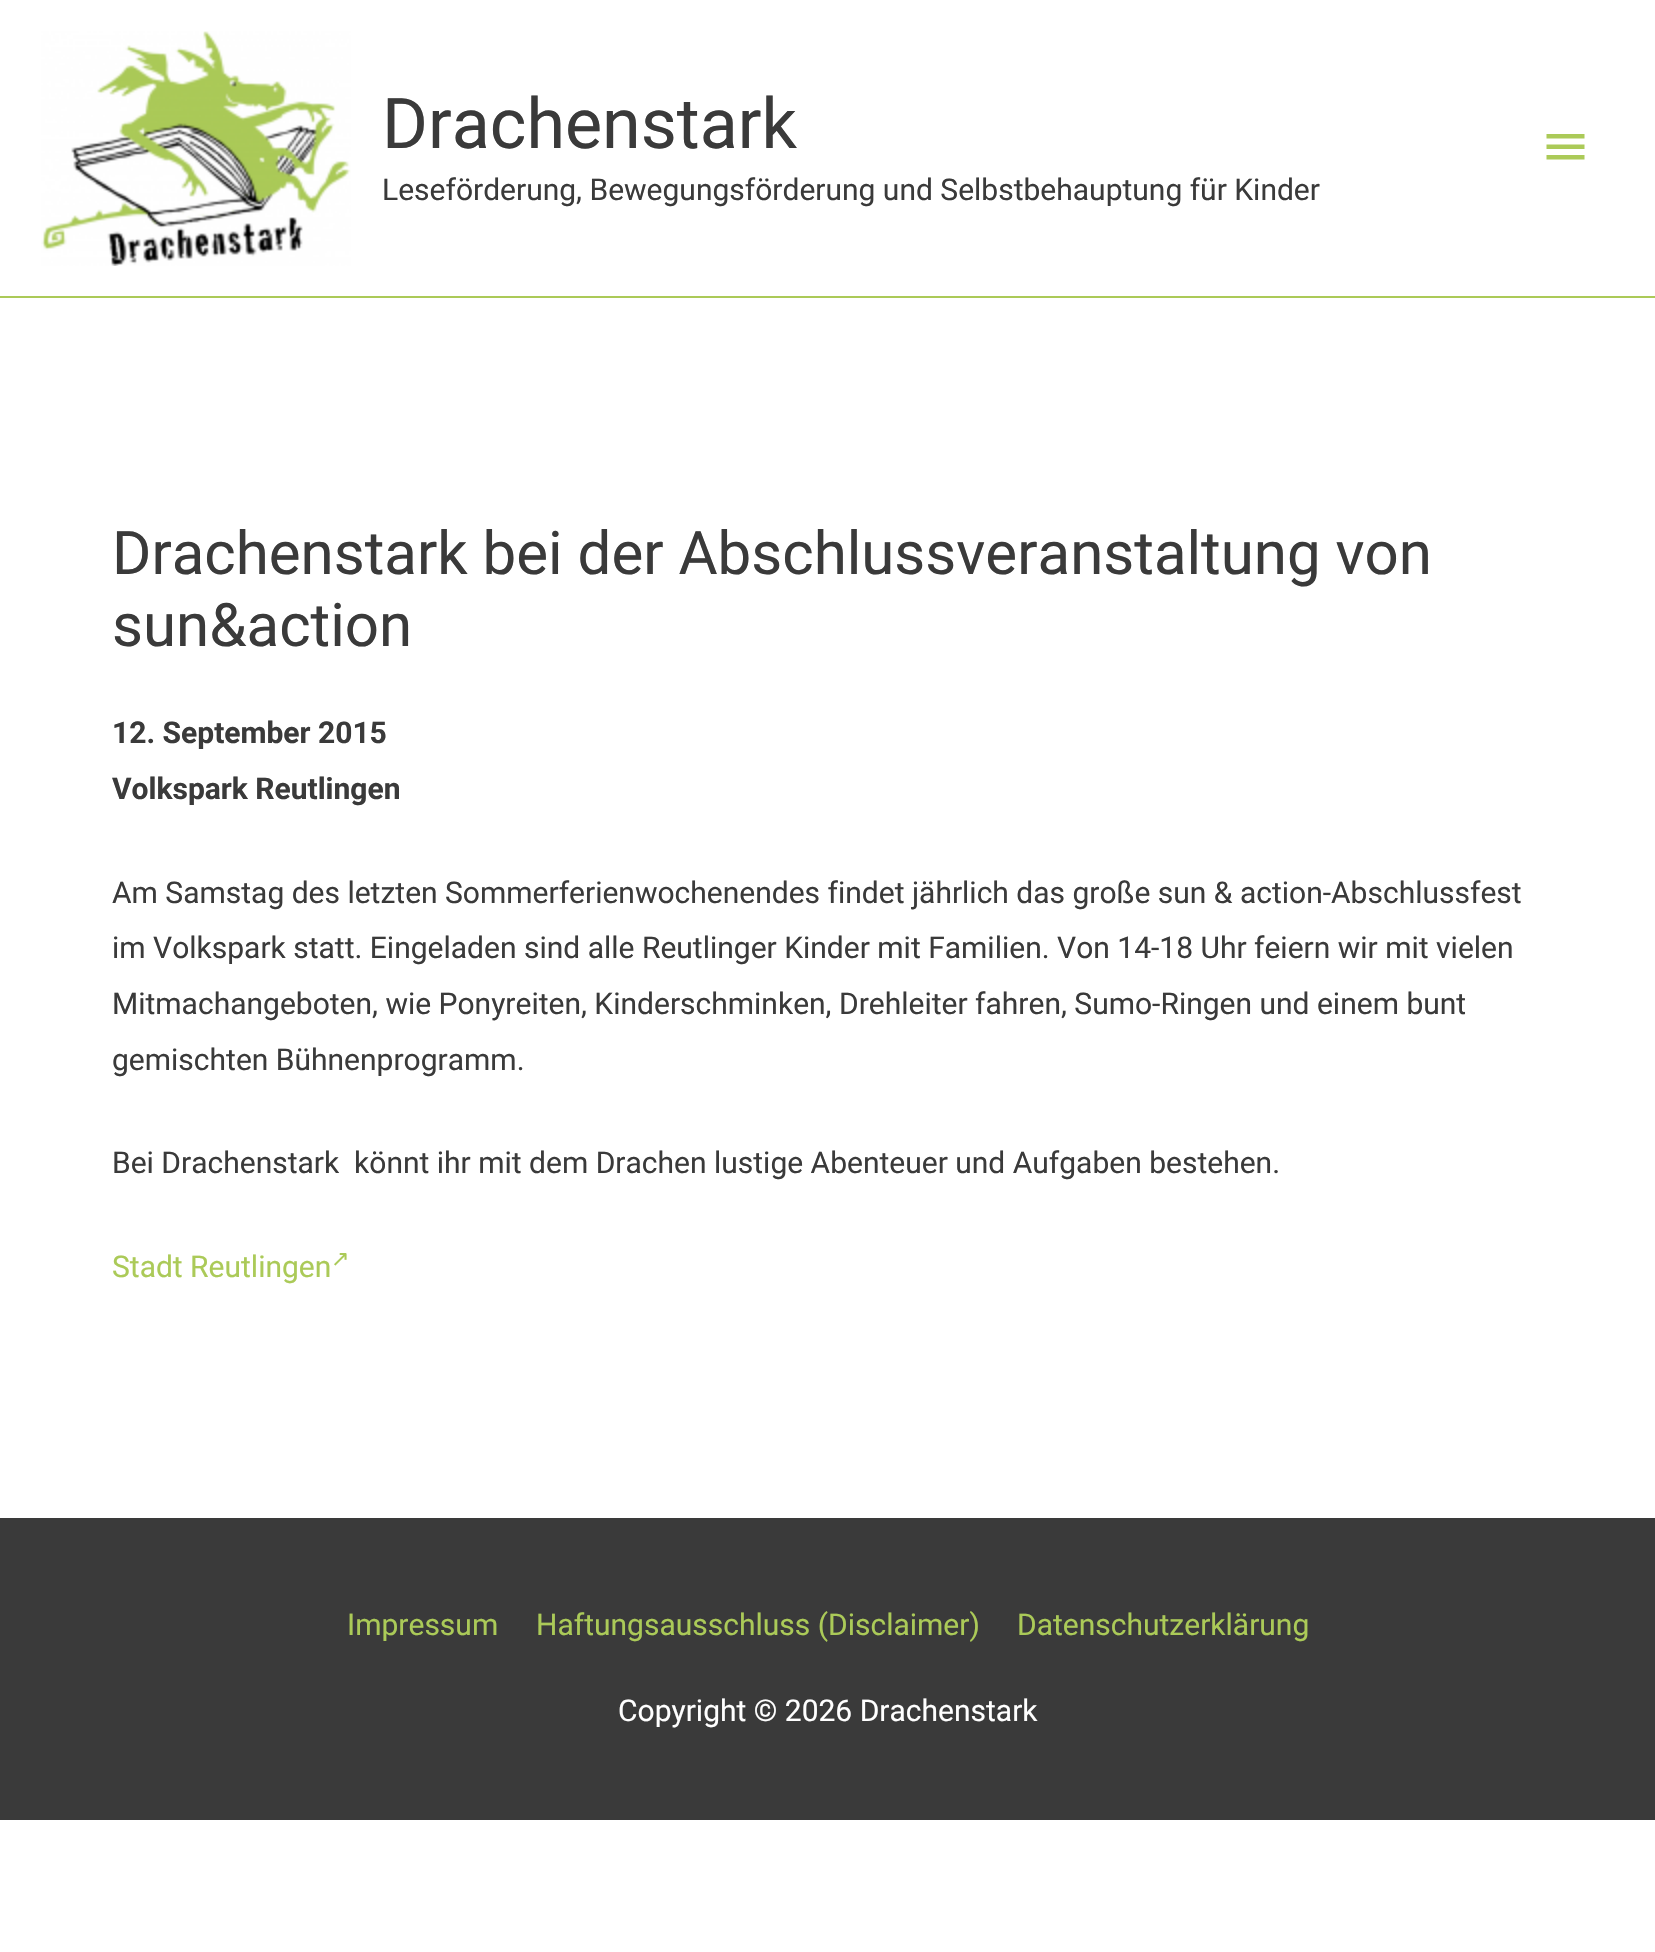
void draw(SkCanvas* canvas) {
	SkPaint paint;
	paint.setAntiAlias(true);
	auto svgPath = [&](const char* data, bool evenOdd = false) {
		SkPath result = *SkParsePath::FromSVGString(data);
		if (evenOdd) result.setFillType(SkPathFillType::kEvenOdd);
		return result;
	};
	canvas->clear(0xffffffff);
	paint.setColor(0xffabca58);
	canvas->drawRect(SkRect::MakeXYWH(0, 296, 1655, 2), paint);
	canvas->drawImageRect(SkImages::DeferredFromEncodedData(SkData::MakeFromFileName("img1.png")), SkRect::MakeXYWH(41, 31, 310, 235), SkSamplingOptions());
	SkFont f1(fontMgr->matchFamilyStyle("Roboto", SkFontStyle::Normal()), 70);
	f1.setSubpixel(true);
	paint.setColor(0xff3a3a3a);
	canvas->drawString("Drachenstark", 382, 148, f1, paint);
	SkFont f2(fontMgr->matchFamilyStyle("Roboto", SkFontStyle::Normal()), 30);
	f2.setSubpixel(true);
	canvas->drawString("Leseförderung, Bewegungsförderung und Selbstbehauptung für Kinder", 382, 200, f2, paint);
	paint.setColor(0xffabca58);
	canvas->drawPath(svgPath("M1546.5 134H1584.5V138.5H1546.5ZM1546.5 149V144.5H1584.5V149ZM1546.5 159.5V155H1584.5V159.5Z"), paint);
	SkFont f3(fontMgr->matchFamilyStyle("Roboto", SkFontStyle::Normal()), 60);
	f3.setSubpixel(true);
	paint.setColor(0xff3a3a3a);
	canvas->drawString("Drachenstark bei der Abschlussveranstaltung von", 112, 574, f3, paint);
	canvas->drawString("sun&action", 112, 646, f3, paint);
	SkFont f4(fontMgr->matchFamilyStyle("Roboto", SkFontStyle::Bold()), 30);
	f4.setSubpixel(true);
	canvas->drawString("12. September 2015", 112, 743, f4, paint);
	canvas->drawString("Volkspark Reutlingen", 112, 799, f4, paint);
	canvas->drawString("Am Samstag des letzten Sommerferienwochenendes findet jährlich das große sun & action-Abschlussfest", 112, 903, f2, paint);
	canvas->drawString("im Volkspark statt. Eingeladen sind alle Reutlinger Kinder mit Familien. Von 14-18 Uhr feiern wir mit vielen", 112, 958, f2, paint);
	canvas->drawString("Mitmachangeboten, wie Ponyreiten, Kinderschminken, Drehleiter fahren, Sumo-Ringen und einem bunt", 112, 1014, f2, paint);
	canvas->drawString("gemischten Bühnenprogramm.", 112, 1070, f2, paint);
	canvas->drawString("Bei Drachenstark  könnt ihr mit dem Drachen lustige Abenteuer und Aufgaben bestehen.", 112, 1173, f2, paint);
	paint.setColor(0xffabca58);
	canvas->drawString("Stadt Reutlingen", 112, 1277, f2, paint);
	SkFont f5(fontMgr->matchFamilyStyle("DejaVu Sans", SkFontStyle::Normal()), 22);
	f5.setSubpixel(true);
	canvas->drawString("↗", 331, 1266, f5, paint);
	paint.setColor(0xff3a3a3a);
	canvas->drawRect(SkRect::MakeXYWH(0, 1518, 1655, 302), paint);
	paint.setColor(0xffabca58);
	canvas->drawString("Impressum", 347, 1635, f2, paint);
	canvas->drawString("Haftungsausschluss (Disclaimer)", 536, 1635, f2, paint);
	canvas->drawString("Datenschutzerklärung", 1017, 1635, f2, paint);
	paint.setColor(0xffffffff);
	canvas->drawString("Copyright © 2026 Drachenstark", 618, 1721, f2, paint);
}
